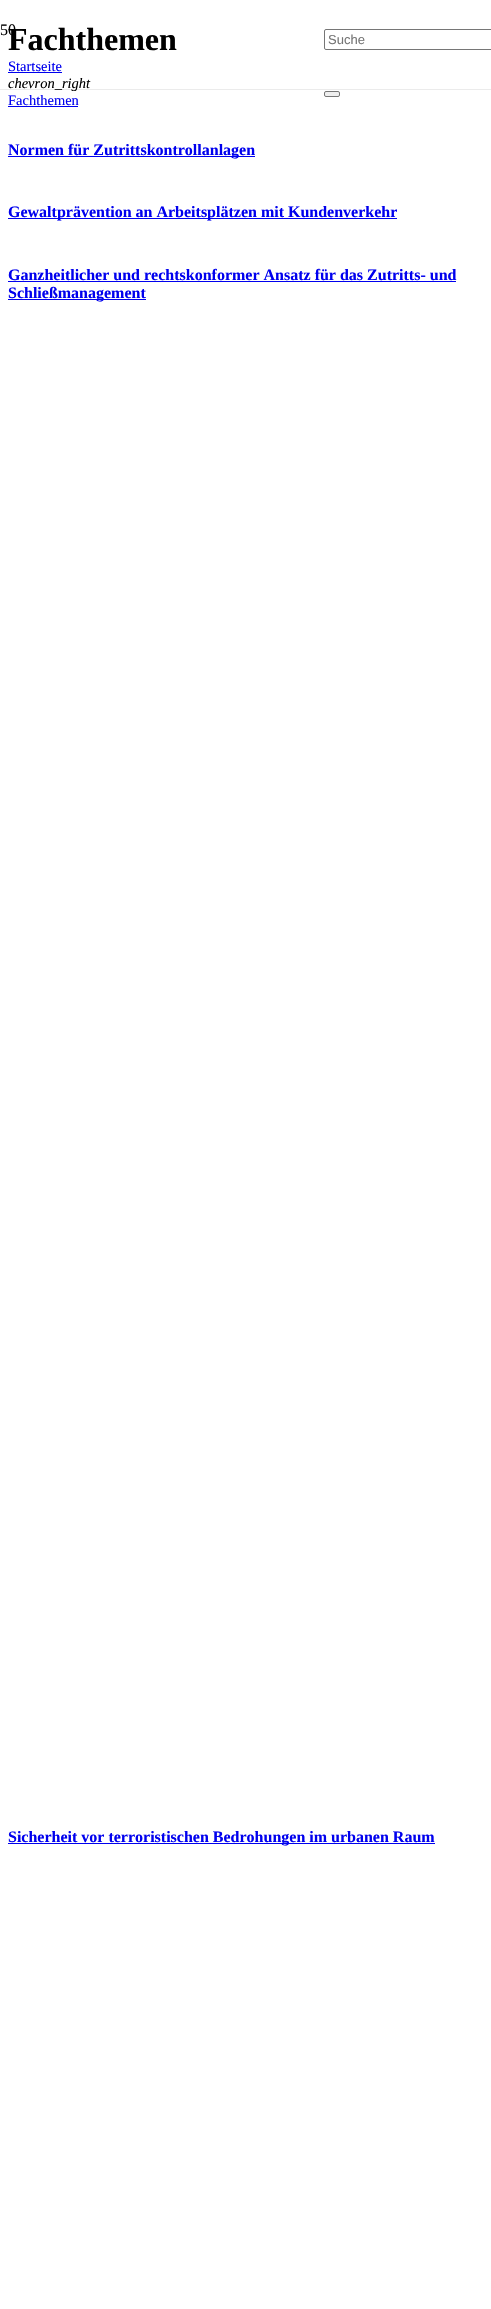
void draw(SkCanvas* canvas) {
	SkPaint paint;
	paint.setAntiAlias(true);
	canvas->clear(0xffffffff);
	SkFont f1(fontMgr->matchFamilyStyle("Liberation Serif", SkFontStyle::Bold()), 32);
	f1.setSubpixel(true);
	paint.setColor(0xff000000);
	canvas->drawString("Fachthemen", 8, 50, f1, paint);
	SkFont f2(fontMgr->matchFamilyStyle("Liberation Serif", SkFontStyle::Normal()), 16);
	f2.setSubpixel(true);
	canvas->drawString("50", 0, 35, f2, paint);
	paint.setColor(0x14000000);
	canvas->drawRect(SkRect::MakeXYWH(0, 89, 491, 1), paint);
	paint.setStroke(true);
	paint.setStrokeWidth(1);
	paint.setColor(0xff767676);
	canvas->drawRoundRect(SkRect::MakeXYWH(324.5, 29.5, 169, 20), 1.5, 1.5, paint);
	SkFont f3(fontMgr->matchFamilyStyle("Liberation Sans", SkFontStyle::Normal()), 13);
	f3.setSubpixel(true);
	paint.setStroke(false);
	paint.setColor(0xff757575);
	canvas->drawString("Suche", 328, 44, f3, paint);
	paint.setColor(0xffefefef);
	canvas->drawRoundRect(SkRect::MakeXYWH(324.5, 91.5, 15, 5), 1.5, 1.5, paint);
	paint.setStroke(true);
	paint.setColor(0xff767676);
	canvas->drawRoundRect(SkRect::MakeXYWH(324.5, 91.5, 15, 5), 1.5, 1.5, paint);
	SkFont f4(fontMgr->matchFamilyStyle("Liberation Serif", SkFontStyle::Normal()), 14.5);
	f4.setSubpixel(true);
	paint.setStroke(false);
	paint.setColor(0xff0000ee);
	canvas->drawString("Startseite", 8, 71, f4, paint);
	canvas->drawRect(SkRect::MakeXYWH(8, 72, 54, 1), paint);
	SkFont f5(fontMgr->matchFamilyStyle("Liberation Serif", SkFontStyle::Italic()), 14.5);
	f5.setSubpixel(true);
	paint.setColor(0xff000000);
	canvas->drawString("chevron_right", 8, 88, f5, paint);
	paint.setColor(0xff0000ee);
	canvas->drawString("Fachthemen", 8, 105, f4, paint);
	canvas->drawRect(SkRect::MakeXYWH(8, 106, 70, 1), paint);
	canvas->drawRect(SkRect::MakeXYWH(8, 156, 247, 1), paint);
	SkFont f6(fontMgr->matchFamilyStyle("Liberation Serif", SkFontStyle::Bold()), 16);
	f6.setSubpixel(true);
	canvas->drawString("Normen für Zutrittskontrollanlagen", 8, 155, f6, paint);
	canvas->drawRect(SkRect::MakeXYWH(8, 218, 389, 1), paint);
	canvas->drawString("Gewaltprävention an Arbeitsplätzen mit Kundenverkehr", 8, 217, f6, paint);
	canvas->drawString("Ganzheitlicher und rechtskonformer Ansatz für das Zutritts- und", 8, 280, f6, paint);
	canvas->drawRect(SkRect::MakeXYWH(8, 281, 448, 1), paint);
	canvas->drawRect(SkRect::MakeXYWH(8, 299, 138, 1), paint);
	canvas->drawString("Schließmanagement", 8, 298, f6, paint);
	canvas->drawRect(SkRect::MakeXYWH(8, 1843, 427, 1), paint);
	canvas->drawString("Sicherheit vor terroristischen Bedrohungen im urbanen Raum", 8, 1842, f6, paint);
}
